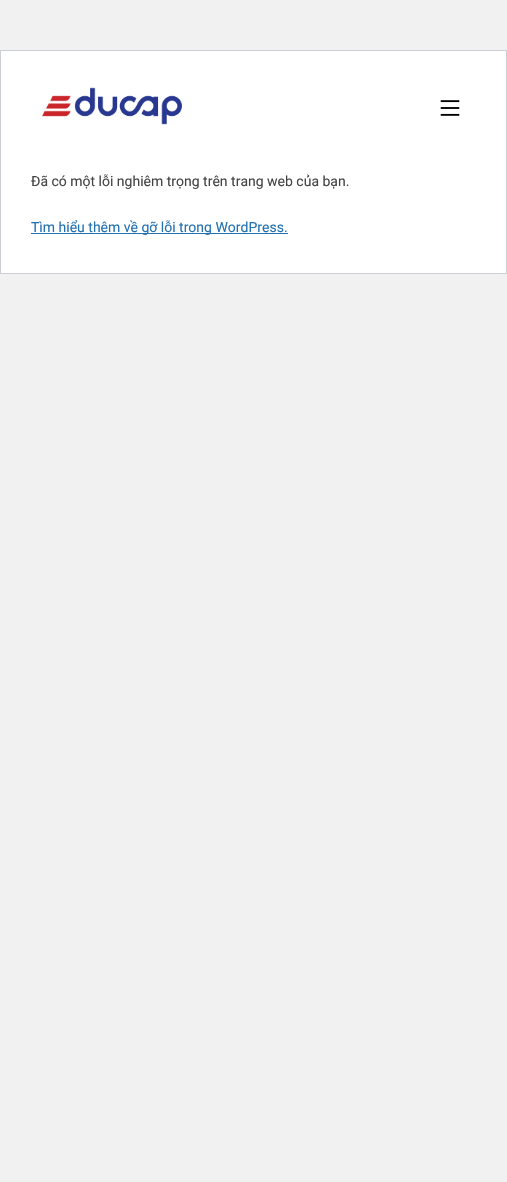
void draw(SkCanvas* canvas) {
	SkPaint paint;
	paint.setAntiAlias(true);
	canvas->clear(0xfff1f1f1);
	paint.setColor(0xffffffff);
	canvas->drawRect(SkRect::MakeXYWH(0.5, 50.5, 506, 223), paint);
	paint.setStroke(true);
	paint.setStrokeWidth(1);
	paint.setColor(0xffccd0d4);
	canvas->drawRect(SkRect::MakeXYWH(0.5, 50.5, 506, 223), paint);
	canvas->drawImageRect(SkImages::DeferredFromEncodedData(SkData::MakeFromFileName("img1.png")), SkRect::MakeXYWH(42, 87, 140, 38), SkSamplingOptions());
	canvas->drawImageRect(SkImages::DeferredFromEncodedData(SkData::MakeFromFileName("img2.png")), SkRect::MakeXYWH(440, 100, 20, 16), SkSamplingOptions());
	SkFont f1(fontMgr->matchFamilyStyle("Roboto", SkFontStyle::Normal()), 14);
	f1.setSubpixel(true);
	paint.setStroke(false);
	paint.setColor(0xff444444);
	canvas->drawString("Đã có một lỗi nghiêm trọng trên trang web của bạn.", 31, 186, f1, paint);
	paint.setColor(0xff2271b1);
	canvas->drawRect(SkRect::MakeXYWH(31, 233, 257, 1), paint);
	canvas->drawString("Tìm hiểu thêm về gỡ lỗi trong WordPress.", 31, 232, f1, paint);
}
